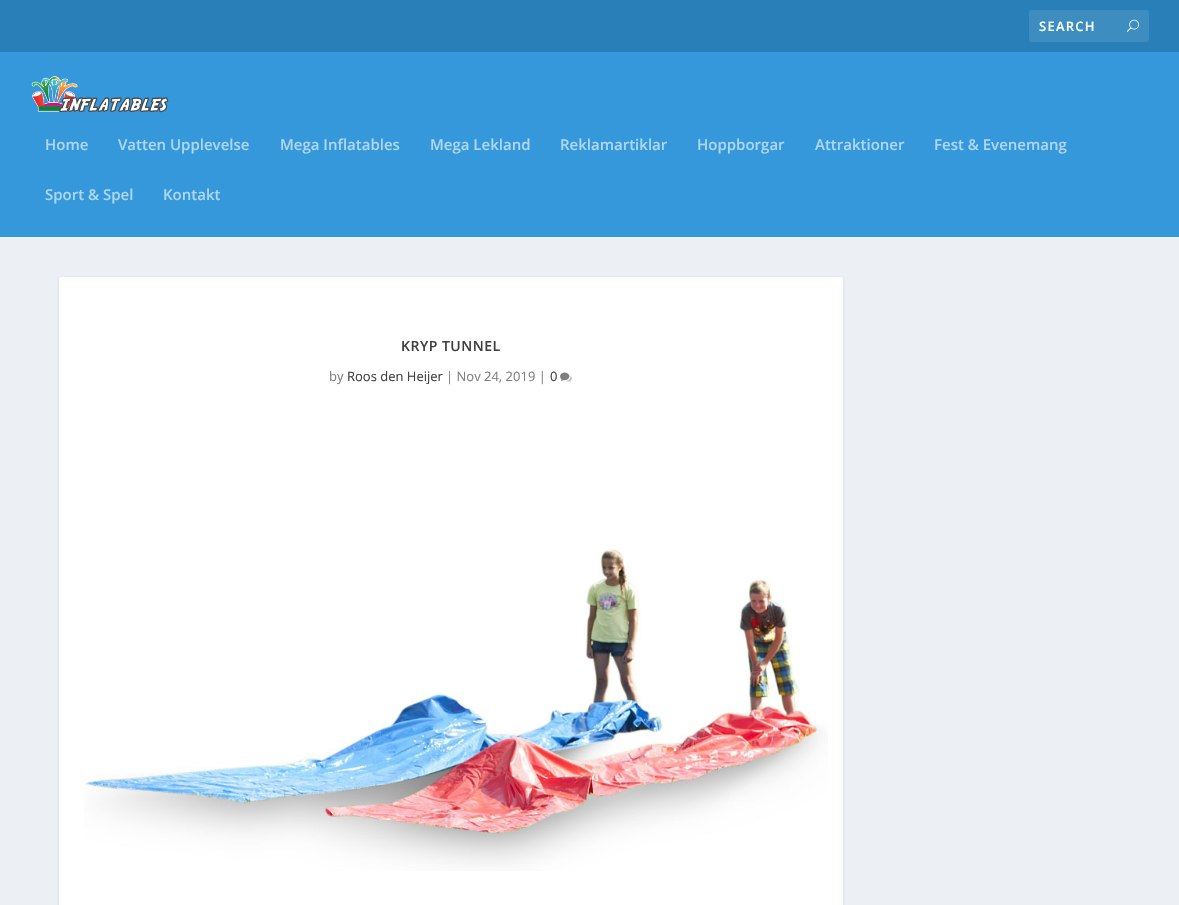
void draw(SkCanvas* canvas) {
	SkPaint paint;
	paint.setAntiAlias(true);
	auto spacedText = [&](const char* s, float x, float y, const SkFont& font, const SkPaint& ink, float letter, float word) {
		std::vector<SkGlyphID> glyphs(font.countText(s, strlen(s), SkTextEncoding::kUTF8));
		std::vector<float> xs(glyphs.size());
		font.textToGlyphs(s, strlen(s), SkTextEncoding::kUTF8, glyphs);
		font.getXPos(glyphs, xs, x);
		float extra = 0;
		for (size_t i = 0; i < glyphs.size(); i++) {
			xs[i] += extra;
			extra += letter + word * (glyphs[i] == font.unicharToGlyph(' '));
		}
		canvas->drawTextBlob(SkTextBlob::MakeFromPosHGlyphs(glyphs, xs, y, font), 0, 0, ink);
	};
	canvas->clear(0xffecf0f5);
	paint.setColor(0xff2980b9);
	canvas->drawRect(SkRect::MakeXYWH(0, 0, 1179, 52), paint);
	paint.setColor(0xff3e8dc0);
	canvas->drawRoundRect(SkRect::MakeXYWH(1029, 10, 120, 32), 3, 3, paint);
	SkFont f1(fontMgr->matchFamilyStyle("Open Sans", SkFontStyle(600, SkFontStyle::kNormal_Width, SkFontStyle::kUpright_Slant)), 13);
	f1.setSubpixel(true);
	paint.setColor(0xffffffff);
	spacedText("SEARCH", 1039, 31, f1, paint, 1.25, 0);
	canvas->drawImageRect(SkImages::DeferredFromEncodedData(SkData::MakeFromFileName("img1.png")), SkRect::MakeXYWH(1127, 19, 12, 13), SkSamplingOptions());
	paint.setColor(0xff3498db);
	canvas->drawRect(SkRect::MakeXYWH(0, 52, 1179, 185), paint);
	canvas->drawImageRect(SkImages::DeferredFromEncodedData(SkData::MakeFromFileName("img2.png")), SkRect::MakeXYWH(31, 76, 138, 37), SkSamplingOptions());
	SkFont f2(fontMgr->matchFamilyStyle("Open Sans", SkFontStyle(600, SkFontStyle::kNormal_Width, SkFontStyle::kUpright_Slant)), 15);
	f2.setSubpixel(true);
	paint.setColor(0xffaed6f1);
	canvas->drawString("Home", 45, 150, f2, paint);
	canvas->drawString("Vatten Upplevelse", 118, 150, f2, paint);
	canvas->drawString("Mega Inflatables", 280, 150, f2, paint);
	canvas->drawString("Mega Lekland", 430, 150, f2, paint);
	canvas->drawString("Reklamartiklar", 560, 150, f2, paint);
	canvas->drawString("Hoppborgar", 697, 150, f2, paint);
	canvas->drawString("Attraktioner", 815, 150, f2, paint);
	canvas->drawString("Fest & Evenemang", 934, 150, f2, paint);
	canvas->drawString("Sport & Spel", 45, 200, f2, paint);
	canvas->drawString("Kontakt", 163, 200, f2, paint);
	paint.setColor(0x1a000000);
	paint.setMaskFilter(SkMaskFilter::MakeBlur(kNormal_SkBlurStyle, 1.5));
	canvas->drawRoundRect(SkRect::MakeXYWH(59, 278, 784, 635), 3, 3, paint);
	paint.setMaskFilter(nullptr);
	paint.setColor(0xffffffff);
	canvas->drawRoundRect(SkRect::MakeXYWH(59, 277, 784, 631), 3, 3, paint);
	SkFont f3(fontMgr->matchFamilyStyle("Open Sans", SkFontStyle(600, SkFontStyle::kNormal_Width, SkFontStyle::kUpright_Slant)), 14);
	f3.setSubpixel(true);
	paint.setColor(0xff404040);
	spacedText("KRYP TUNNEL", 401, 351, f3, paint, 0.5, 0);
	SkFont f4(fontMgr->matchFamilyStyle("Open Sans", SkFontStyle::Normal()), 13);
	f4.setSubpixel(true);
	paint.setColor(0xff808080);
	canvas->drawString("by", 329, 381, f4, paint);
	paint.setColor(0xff404040);
	canvas->drawString("Roos den Heijer", 347, 381, f4, paint);
	paint.setColor(0xff808080);
	canvas->drawString("| Nov 24, 2019 |", 446, 381, f4, paint);
	paint.setColor(0xff404040);
	canvas->drawString("0", 550, 381, f4, paint);
	canvas->drawImageRect(SkImages::DeferredFromEncodedData(SkData::MakeFromFileName("img3.png")), SkRect::MakeXYWH(560, 372, 12, 10), SkSamplingOptions());
	canvas->drawImageRect(SkImages::DeferredFromEncodedData(SkData::MakeFromFileName("img4.png")), SkRect::MakeXYWH(84, 548, 744, 323), SkSamplingOptions());
}
